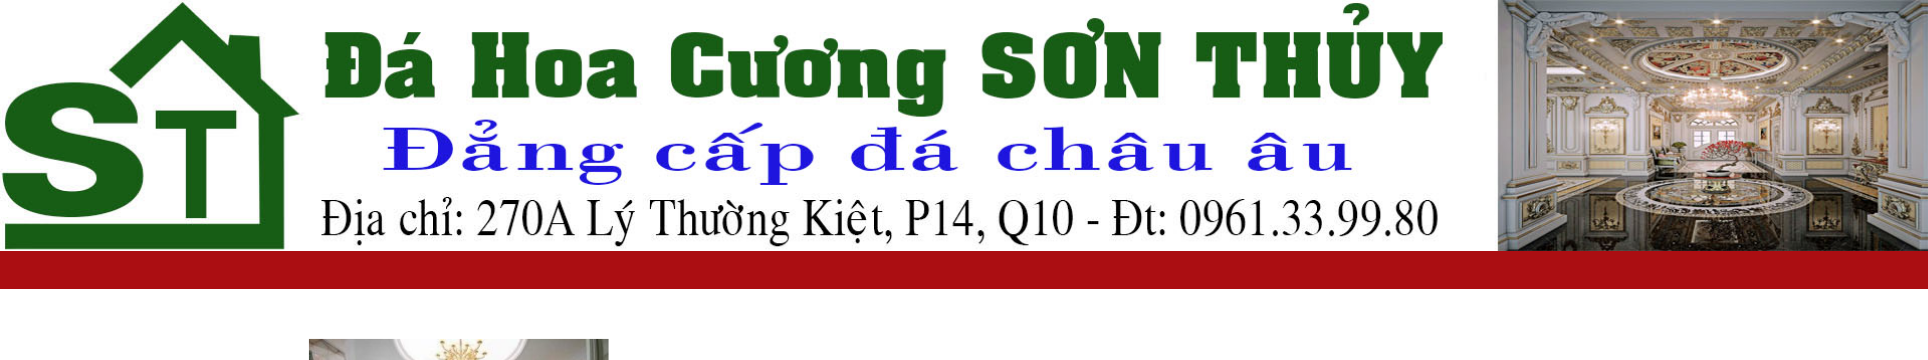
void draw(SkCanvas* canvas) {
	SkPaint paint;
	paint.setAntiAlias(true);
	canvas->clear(0xffffffff);
	canvas->drawImageRect(SkImages::DeferredFromEncodedData(SkData::MakeFromFileName("img1.png")), SkRect::MakeXYWH(0, 0, 1928, 251), SkSamplingOptions());
	paint.setColor(0xffab0e12);
	canvas->drawRect(SkRect::MakeXYWH(0, 251, 1928, 38), paint);
	canvas->drawImageRect(SkImages::DeferredFromEncodedData(SkData::MakeFromFileName("img2.png")), SkRect::MakeXYWH(308, 338, 301, 22), SkSamplingOptions());
}
